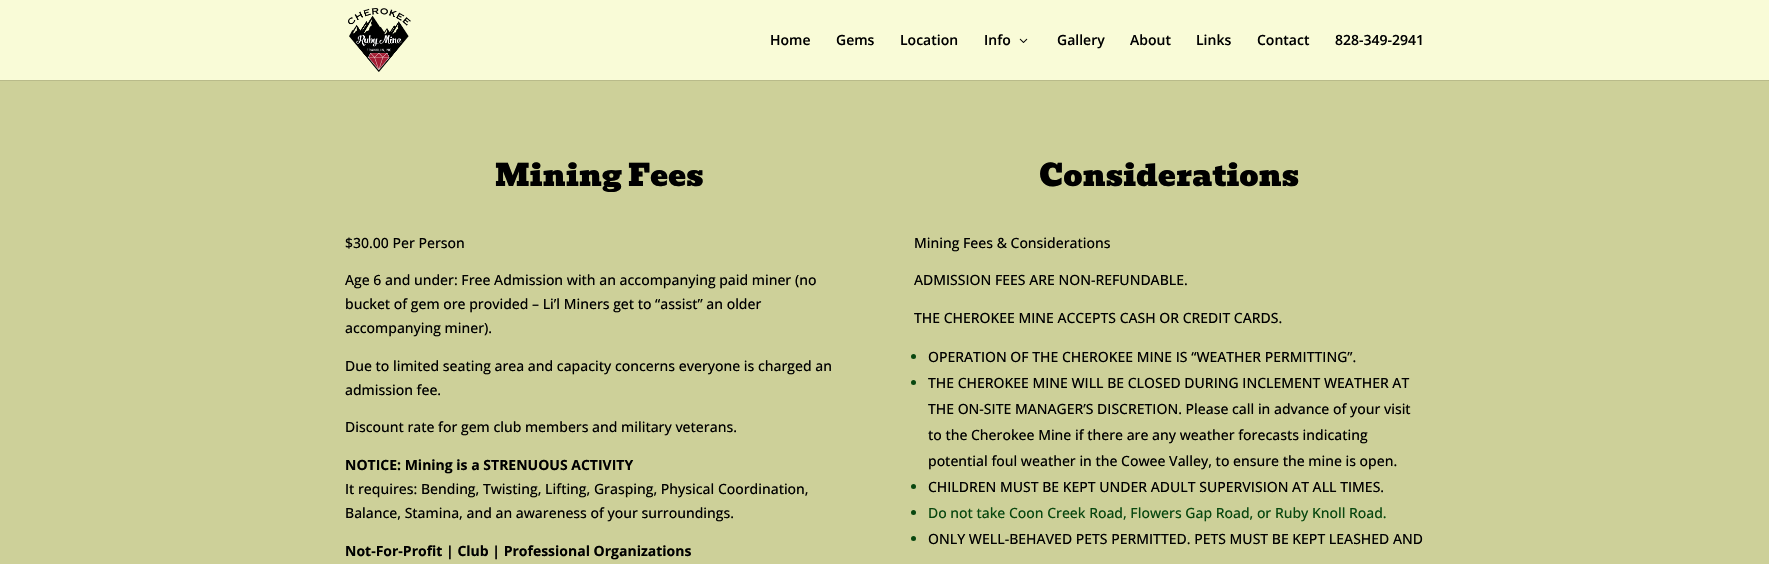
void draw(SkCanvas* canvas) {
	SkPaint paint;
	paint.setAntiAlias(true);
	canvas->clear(0xffcdd099);
	paint.setColor(0xffb9bb8a);
	canvas->drawRect(SkRect::MakeXYWH(0, 80, 1769, 1), paint);
	paint.setColor(0xfff9fbd7);
	canvas->drawRect(SkRect::MakeXYWH(0, 0, 1769, 80), paint);
	canvas->drawImageRect(SkImages::DeferredFromEncodedData(SkData::MakeFromFileName("img1.png")), SkRect::MakeXYWH(348, 8, 63, 64), SkSamplingOptions());
	SkFont f1(fontMgr->matchFamilyStyle("Open Sans", SkFontStyle(600, SkFontStyle::kNormal_Width, SkFontStyle::kUpright_Slant)), 14);
	f1.setSubpixel(true);
	paint.setColor(0xff000000);
	canvas->drawString("Home", 770, 45, f1, paint);
	canvas->drawString("Gems", 836, 45, f1, paint);
	canvas->drawString("Location", 900, 45, f1, paint);
	canvas->drawString("Info", 984, 45, f1, paint);
	canvas->drawImageRect(SkImages::DeferredFromEncodedData(SkData::MakeFromFileName("img2.png")), SkRect::MakeXYWH(1019, 38, 9, 5), SkSamplingOptions());
	canvas->drawString("Gallery", 1057, 45, f1, paint);
	canvas->drawString("About", 1130, 45, f1, paint);
	canvas->drawString("Links", 1196, 45, f1, paint);
	canvas->drawString("Contact", 1257, 45, f1, paint);
	canvas->drawString("828-349-2941", 1335, 45, f1, paint);
	SkFont f2(fontMgr->matchFamilyStyle("Bevan", SkFontStyle::Normal()), 30);
	f2.setSubpixel(true);
	canvas->drawString("Mining Fees", 495, 186, f2, paint);
	SkFont f3(fontMgr->matchFamilyStyle("Open Sans", SkFontStyle(500, SkFontStyle::kNormal_Width, SkFontStyle::kUpright_Slant)), 14);
	f3.setSubpixel(true);
	canvas->drawString("$30.00 Per Person", 345, 248, f3, paint);
	canvas->drawString("Age 6 and under: Free Admission with an accompanying paid miner (no", 345, 285, f3, paint);
	canvas->drawString("bucket of gem ore provided – Li’l Miners get to “assist” an older", 345, 309, f3, paint);
	canvas->drawString("accompanying miner).", 345, 333, f3, paint);
	canvas->drawString("Due to limited seating area and capacity concerns everyone is charged an", 345, 371, f3, paint);
	canvas->drawString("admission fee.", 345, 395, f3, paint);
	canvas->drawString("Discount rate for gem club members and military veterans.", 345, 432, f3, paint);
	SkFont f4(fontMgr->matchFamilyStyle("Open Sans", SkFontStyle::Bold()), 14);
	f4.setSubpixel(true);
	canvas->drawString("NOTICE: Mining is a STRENUOUS ACTIVITY", 345, 470, f4, paint);
	canvas->drawString("It requires: Bending, Twisting, Lifting, Grasping, Physical Coordination,", 345, 494, f3, paint);
	canvas->drawString("Balance, Stamina, and an awareness of your surroundings.", 345, 518, f3, paint);
	canvas->drawString("Not-For-Profit | Club | Professional Organizations", 345, 556, f4, paint);
	canvas->drawString("Considerations", 1039, 186, f2, paint);
	canvas->drawString("Mining Fees & Considerations", 914, 248, f3, paint);
	canvas->drawString("ADMISSION FEES ARE NON-REFUNDABLE.", 914, 285, f3, paint);
	canvas->drawString("THE CHEROKEE MINE ACCEPTS CASH OR CREDIT CARDS.", 914, 323, f3, paint);
	paint.setColor(0xff08470f);
	canvas->drawCircle(913.5, 356.5, 2.5, paint);
	paint.setColor(0xff000000);
	canvas->drawString("OPERATION OF THE CHEROKEE MINE IS “WEATHER PERMITTING”.", 928, 362, f3, paint);
	paint.setColor(0xff08470f);
	canvas->drawCircle(913.5, 382.5, 2.5, paint);
	paint.setColor(0xff000000);
	canvas->drawString("THE CHEROKEE MINE WILL BE CLOSED DURING INCLEMENT WEATHER AT", 928, 388, f3, paint);
	canvas->drawString("THE ON-SITE MANAGER’S DISCRETION. Please call in advance of your visit", 928, 414, f3, paint);
	canvas->drawString("to the Cherokee Mine if there are any weather forecasts indicating", 928, 440, f3, paint);
	canvas->drawString("potential foul weather in the Cowee Valley, to ensure the mine is open.", 928, 466, f3, paint);
	paint.setColor(0xff08470f);
	canvas->drawCircle(913.5, 486.5, 2.5, paint);
	paint.setColor(0xff000000);
	canvas->drawString("CHILDREN MUST BE KEPT UNDER ADULT SUPERVISION AT ALL TIMES.", 928, 492, f3, paint);
	paint.setColor(0xff08470f);
	canvas->drawCircle(913.5, 512.5, 2.5, paint);
	canvas->drawString("Do not take Coon Creek Road, Flowers Gap Road, or Ruby Knoll Road.", 928, 518, f3, paint);
	canvas->drawCircle(913.5, 538.5, 2.5, paint);
	paint.setColor(0xff000000);
	canvas->drawString("ONLY WELL-BEHAVED PETS PERMITTED. PETS MUST BE KEPT LEASHED AND", 928, 544, f3, paint);
}
